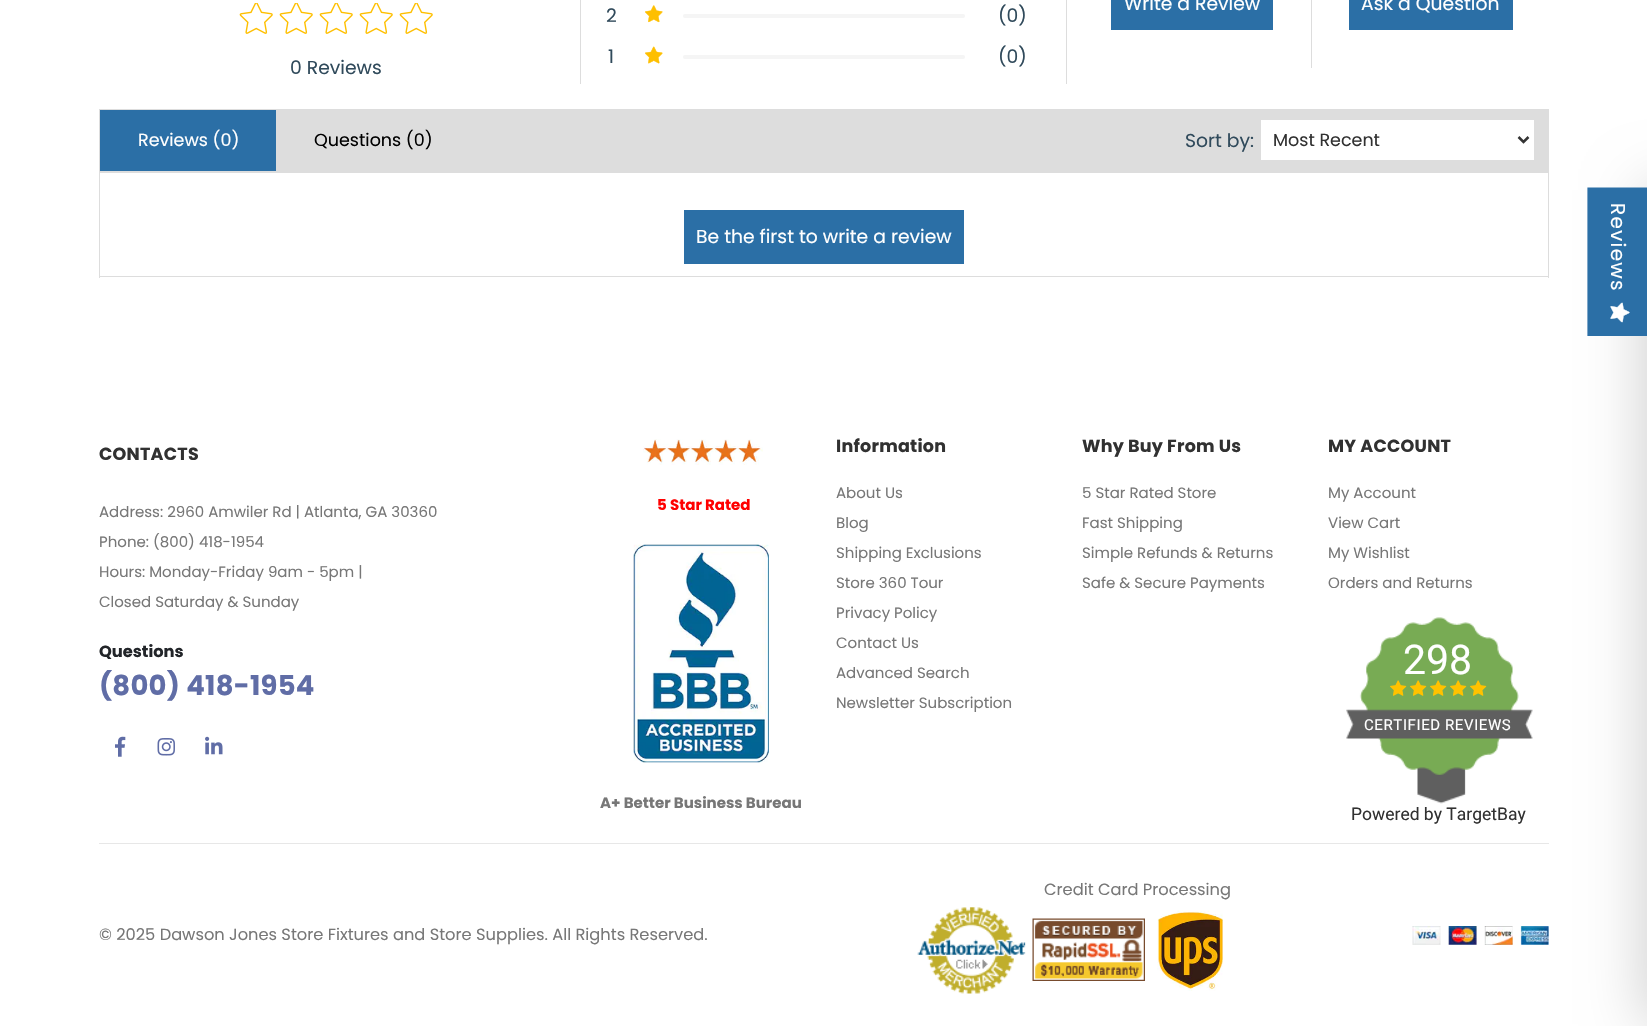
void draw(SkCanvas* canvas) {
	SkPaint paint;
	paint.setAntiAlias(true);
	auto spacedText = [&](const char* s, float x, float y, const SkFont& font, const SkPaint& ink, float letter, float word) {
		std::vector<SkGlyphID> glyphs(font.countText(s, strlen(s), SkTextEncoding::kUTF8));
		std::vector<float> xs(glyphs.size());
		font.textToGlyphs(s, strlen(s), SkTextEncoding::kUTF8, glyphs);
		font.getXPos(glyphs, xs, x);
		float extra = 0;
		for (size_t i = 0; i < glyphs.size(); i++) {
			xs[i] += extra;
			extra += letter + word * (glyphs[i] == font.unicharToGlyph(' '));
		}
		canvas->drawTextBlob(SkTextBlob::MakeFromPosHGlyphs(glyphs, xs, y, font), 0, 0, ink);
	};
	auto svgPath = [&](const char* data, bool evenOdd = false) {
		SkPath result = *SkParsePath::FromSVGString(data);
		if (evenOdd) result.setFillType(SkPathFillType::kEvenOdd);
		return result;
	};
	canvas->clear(0xffffffff);
	canvas->drawImageRect(SkImages::DeferredFromEncodedData(SkData::MakeFromFileName("img1.png")), SkRect::MakeXYWH(239, 3, 34, 31), SkSamplingOptions());
	canvas->drawImageRect(SkImages::DeferredFromEncodedData(SkData::MakeFromFileName("img1.png")), SkRect::MakeXYWH(279, 3, 34, 31), SkSamplingOptions());
	canvas->drawImageRect(SkImages::DeferredFromEncodedData(SkData::MakeFromFileName("img1.png")), SkRect::MakeXYWH(319, 3, 34, 31), SkSamplingOptions());
	canvas->drawImageRect(SkImages::DeferredFromEncodedData(SkData::MakeFromFileName("img1.png")), SkRect::MakeXYWH(359, 3, 34, 31), SkSamplingOptions());
	canvas->drawImageRect(SkImages::DeferredFromEncodedData(SkData::MakeFromFileName("img1.png")), SkRect::MakeXYWH(399, 3, 34, 31), SkSamplingOptions());
	SkFont f1(fontMgr->matchFamilyStyle("Poppins", SkFontStyle::Normal()), 18.75);
	f1.setSubpixel(true);
	paint.setColor(0xff304a5b);
	canvas->drawString("0 Reviews", 290, 74, f1, paint);
	paint.setColor(0xffdddddd);
	canvas->drawRect(SkRect::MakeXYWH(1066, 0, 1, 84), paint);
	canvas->drawRect(SkRect::MakeXYWH(580, 0, 1, 84), paint);
	paint.setColor(0xff304a5b);
	canvas->drawString("2", 606, 22, f1, paint);
	canvas->drawImageRect(SkImages::DeferredFromEncodedData(SkData::MakeFromFileName("img2.png")), SkRect::MakeXYWH(645, 5, 18, 18), SkSamplingOptions());
	paint.setColor(0xfff5f5f5);
	canvas->drawRoundRect(SkRect::MakeXYWH(683, 14, 282, 4), 2, 2, paint);
	paint.setColor(0xff304a5b);
	canvas->drawString("(0)", 998, 22, f1, paint);
	canvas->drawString("1", 608, 63, f1, paint);
	canvas->drawImageRect(SkImages::DeferredFromEncodedData(SkData::MakeFromFileName("img3.png")), SkRect::MakeXYWH(645, 46, 18, 18), SkSamplingOptions());
	paint.setColor(0xfff5f5f5);
	canvas->drawRoundRect(SkRect::MakeXYWH(683, 55, 282, 4), 2, 2, paint);
	paint.setColor(0xff304a5b);
	canvas->drawString("(0)", 998, 63, f1, paint);
	paint.setColor(0xff2b6fa6);
	canvas->drawRect(SkRect::MakeXYWH(1111, 0, 162, 30), paint);
	paint.setColor(0xffffffff);
	canvas->drawString("Write a Review", 1124, 10, f1, paint);
	paint.setColor(0xffdddddd);
	canvas->drawRect(SkRect::MakeXYWH(1311, 0, 1, 68), paint);
	paint.setColor(0xff2b6fa6);
	canvas->drawRect(SkRect::MakeXYWH(1349, 0, 164, 30), paint);
	paint.setColor(0xffffffff);
	canvas->drawString("Ask a Question", 1361, 10, f1, paint);
	paint.setColor(0xffdddddd);
	canvas->drawRect(SkRect::MakeXYWH(99, 109, 1450, 64), paint);
	paint.setColor(0xff2b6fa6);
	canvas->drawRect(SkRect::MakeXYWH(100, 110, 176, 61), paint);
	SkFont f2(fontMgr->matchFamilyStyle("Poppins", SkFontStyle::Normal()), 17.5);
	f2.setSubpixel(true);
	paint.setColor(0xffffffff);
	canvas->drawString("Reviews (0)", 138, 146, f2, paint);
	paint.setColor(0xff000000);
	canvas->drawString("Questions (0)", 314, 146, f2, paint);
	paint.setColor(0xff304a5b);
	canvas->drawString("Sort by:", 1185, 147, f1, paint);
	paint.setColor(0xffffffff);
	canvas->drawRect(SkRect::MakeXYWH(1261, 120, 273, 40), paint);
	paint.setStroke(true);
	paint.setStrokeWidth(2.5);
	paint.setColor(0xff333333);
	canvas->drawPath(svgPath("M1518.5 137L1523.5 142L1528.5 137"), paint);
	paint.setStroke(false);
	paint.setColor(0xff313131);
	canvas->drawString("Most Recent", 1273, 146, f2, paint);
	paint.setColor(0xffdddddd);
	canvas->drawRect(SkRect::MakeXYWH(1548, 173, 1, 105), paint);
	canvas->drawRect(SkRect::MakeXYWH(99, 276, 1450, 1), paint);
	canvas->drawRect(SkRect::MakeXYWH(99, 173, 1, 105), paint);
	paint.setColor(0xff2b6fa6);
	canvas->drawRect(SkRect::MakeXYWH(684, 210, 280, 54), paint);
	paint.setColor(0xffffffff);
	canvas->drawString("Be the first to write a review", 696, 243, f1, paint);
	paint.setColor(0x33000000);
	paint.setMaskFilter(SkMaskFilter::MakeBlur(kNormal_SkBlurStyle, 31));
	canvas->drawRect(SkRect::MakeXYWH(1646, 190, 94, 834), paint);
	paint.setMaskFilter(nullptr);
	paint.setColor(0xff2b6fa6);
	canvas->drawRect(SkRect::MakeXYWH(1588, 188, 59, 147), paint);
	paint.setStroke(true);
	paint.setStrokeWidth(1.2);
	canvas->drawPath(svgPath("M1647 188V335.5H1588V188Z"), paint);
	SkFont f3(fontMgr->matchFamilyStyle("Poppins", SkFontStyle::Normal()), 20);
	f3.setSubpixel(true);
	paint.setStroke(false);
	paint.setColor(0xffffffff);
	canvas->save();
	canvas->rotate(90, 1611, 203);
	spacedText("Reviews", 1611, 203, f3, paint, 1.25, 0);
	canvas->restore();
	canvas->drawImageRect(SkImages::DeferredFromEncodedData(SkData::MakeFromFileName("img4.png")), SkRect::MakeXYWH(1610, 302, 20, 21), SkSamplingOptions());
	paint.setColor(0xffe7e7e7);
	canvas->drawRect(SkRect::MakeXYWH(99, 843, 1450, 1), paint);
	SkFont f4(fontMgr->matchFamilyStyle("Poppins", SkFontStyle::Bold()), 17.5);
	f4.setSubpixel(true);
	paint.setColor(0xff313131);
	spacedText("CONTACTS", 99, 460, f4, paint, 0.25, 0);
	SkFont f5(fontMgr->matchFamilyStyle("Poppins", SkFontStyle::Normal()), 15);
	f5.setSubpixel(true);
	paint.setColor(0xff777777);
	canvas->drawString("Address: 2960 Amwiler Rd | Atlanta, GA 30360", 99, 517, f5, paint);
	canvas->drawString("Phone: (800) 418-1954", 99, 547, f5, paint);
	canvas->drawString("Hours: Monday-Friday 9am - 5pm |", 99, 577, f5, paint);
	canvas->drawString("Closed Saturday & Sunday", 99, 607, f5, paint);
	SkFont f6(fontMgr->matchFamilyStyle("Poppins", SkFontStyle::Bold()), 16.25);
	f6.setSubpixel(true);
	paint.setColor(0xff222529);
	canvas->drawString("Questions", 99, 657, f6, paint);
	SkFont f7(fontMgr->matchFamilyStyle("Poppins", SkFontStyle::Bold()), 27.5);
	f7.setSubpixel(true);
	paint.setColor(0xff606da6);
	spacedText("(800) 418-1954", 99, 695, f7, paint, 0.25, 0);
	canvas->drawImageRect(SkImages::DeferredFromEncodedData(SkData::MakeFromFileName("img5.png")), SkRect::MakeXYWH(115, 736, 11, 21), SkSamplingOptions());
	canvas->drawImageRect(SkImages::DeferredFromEncodedData(SkData::MakeFromFileName("img6.png")), SkRect::MakeXYWH(157, 738, 18, 18), SkSamplingOptions());
	canvas->drawImageRect(SkImages::DeferredFromEncodedData(SkData::MakeFromFileName("img7.png")), SkRect::MakeXYWH(205, 736, 18, 19), SkSamplingOptions());
	canvas->drawImageRect(SkImages::DeferredFromEncodedData(SkData::MakeFromFileName("img8.png")), SkRect::MakeXYWH(643, 439, 120, 26), SkSamplingOptions());
	SkFont f8(fontMgr->matchFamilyStyle("Poppins", SkFontStyle::Bold()), 15);
	f8.setSubpixel(true);
	paint.setColor(0xffff0000);
	canvas->drawString("5 Star Rated", 657, 510, f8, paint);
	canvas->drawImageRect(SkImages::DeferredFromEncodedData(SkData::MakeFromFileName("img9.png")), SkRect::MakeXYWH(633, 544, 136, 219), SkSamplingOptions());
	paint.setColor(0xff777777);
	canvas->drawString("A+ Better Business Bureau", 600, 808, f8, paint);
	paint.setColor(0xff313131);
	spacedText("Information", 836, 452, f4, paint, 0.25, 0);
	paint.setColor(0xff777777);
	canvas->drawString("About Us", 836, 498, f5, paint);
	canvas->drawString("Blog", 836, 528, f5, paint);
	canvas->drawString("Shipping Exclusions", 836, 558, f5, paint);
	canvas->drawString("Store 360 Tour", 836, 588, f5, paint);
	canvas->drawString("Privacy Policy", 836, 618, f5, paint);
	canvas->drawString("Contact Us", 836, 648, f5, paint);
	canvas->drawString("Advanced Search", 836, 678, f5, paint);
	canvas->drawString("Newsletter Subscription", 836, 708, f5, paint);
	paint.setColor(0xff313131);
	spacedText("Why Buy From Us", 1082, 452, f4, paint, 0.25, 0);
	paint.setColor(0xff777777);
	canvas->drawString("5 Star Rated Store", 1082, 498, f5, paint);
	canvas->drawString("Fast Shipping", 1082, 528, f5, paint);
	canvas->drawString("Simple Refunds & Returns", 1082, 558, f5, paint);
	canvas->drawString("Safe & Secure Payments", 1082, 588, f5, paint);
	paint.setColor(0xff313131);
	spacedText("MY ACCOUNT", 1328, 452, f4, paint, 0.25, 0);
	paint.setColor(0xff777777);
	canvas->drawString("My Account", 1328, 498, f5, paint);
	canvas->drawString("View Cart", 1328, 528, f5, paint);
	canvas->drawString("My Wishlist", 1328, 558, f5, paint);
	canvas->drawString("Orders and Returns", 1328, 588, f5, paint);
	canvas->drawImageRect(SkImages::DeferredFromEncodedData(SkData::MakeFromFileName("img10.png")), SkRect::MakeXYWH(1346, 617, 187, 187), SkSamplingOptions());
	SkFont f9(fontMgr->matchFamilyStyle("Roboto", SkFontStyle::Normal()), 41);
	f9.setSubpixel(true);
	paint.setColor(0xffffffff);
	canvas->drawString("298", 1403, 674, f9, paint);
	canvas->drawImageRect(SkImages::DeferredFromEncodedData(SkData::MakeFromFileName("img11.png")), SkRect::MakeXYWH(1390, 680, 17, 16), SkSamplingOptions());
	canvas->drawImageRect(SkImages::DeferredFromEncodedData(SkData::MakeFromFileName("img11.png")), SkRect::MakeXYWH(1410, 680, 17, 16), SkSamplingOptions());
	canvas->drawImageRect(SkImages::DeferredFromEncodedData(SkData::MakeFromFileName("img11.png")), SkRect::MakeXYWH(1430, 680, 17, 16), SkSamplingOptions());
	canvas->drawImageRect(SkImages::DeferredFromEncodedData(SkData::MakeFromFileName("img11.png")), SkRect::MakeXYWH(1450, 680, 17, 16), SkSamplingOptions());
	canvas->drawImageRect(SkImages::DeferredFromEncodedData(SkData::MakeFromFileName("img11.png")), SkRect::MakeXYWH(1470, 680, 17, 16), SkSamplingOptions());
	SkFont f10(fontMgr->matchFamilyStyle("Roboto", SkFontStyle::Normal()), 15);
	f10.setSubpixel(true);
	spacedText("CERTIFIED REVIEWS", 1364, 730, f10, paint, 0.6, 0);
	SkFont f11(fontMgr->matchFamilyStyle("Roboto", SkFontStyle::Normal()), 17.5);
	f11.setSubpixel(true);
	paint.setColor(0xff313131);
	canvas->drawString("Powered by TargetBay", 1351, 820, f11, paint);
	SkFont f12(fontMgr->matchFamilyStyle("Poppins", SkFontStyle::Normal()), 16.25);
	f12.setSubpixel(true);
	paint.setColor(0xff777777);
	canvas->drawString("Credit Card Processing", 1044, 895, f12, paint);
	canvas->drawImageRect(SkImages::DeferredFromEncodedData(SkData::MakeFromFileName("img12.png")), SkRect::MakeXYWH(917, 907, 109, 87), SkSamplingOptions());
	canvas->drawImageRect(SkImages::DeferredFromEncodedData(SkData::MakeFromFileName("img13.png")), SkRect::MakeXYWH(1032, 918, 113, 63), SkSamplingOptions());
	canvas->drawImageRect(SkImages::DeferredFromEncodedData(SkData::MakeFromFileName("img14.png")), SkRect::MakeXYWH(1157, 910, 66, 81), SkSamplingOptions());
	canvas->drawImageRect(SkImages::DeferredFromEncodedData(SkData::MakeFromFileName("img15.png")), SkRect::MakeXYWH(1412, 926, 137, 19), SkSamplingOptions());
	canvas->drawString("© 2025 Dawson Jones Store Fixtures and Store Supplies. All Rights Reserved.", 99, 940, f12, paint);
}
